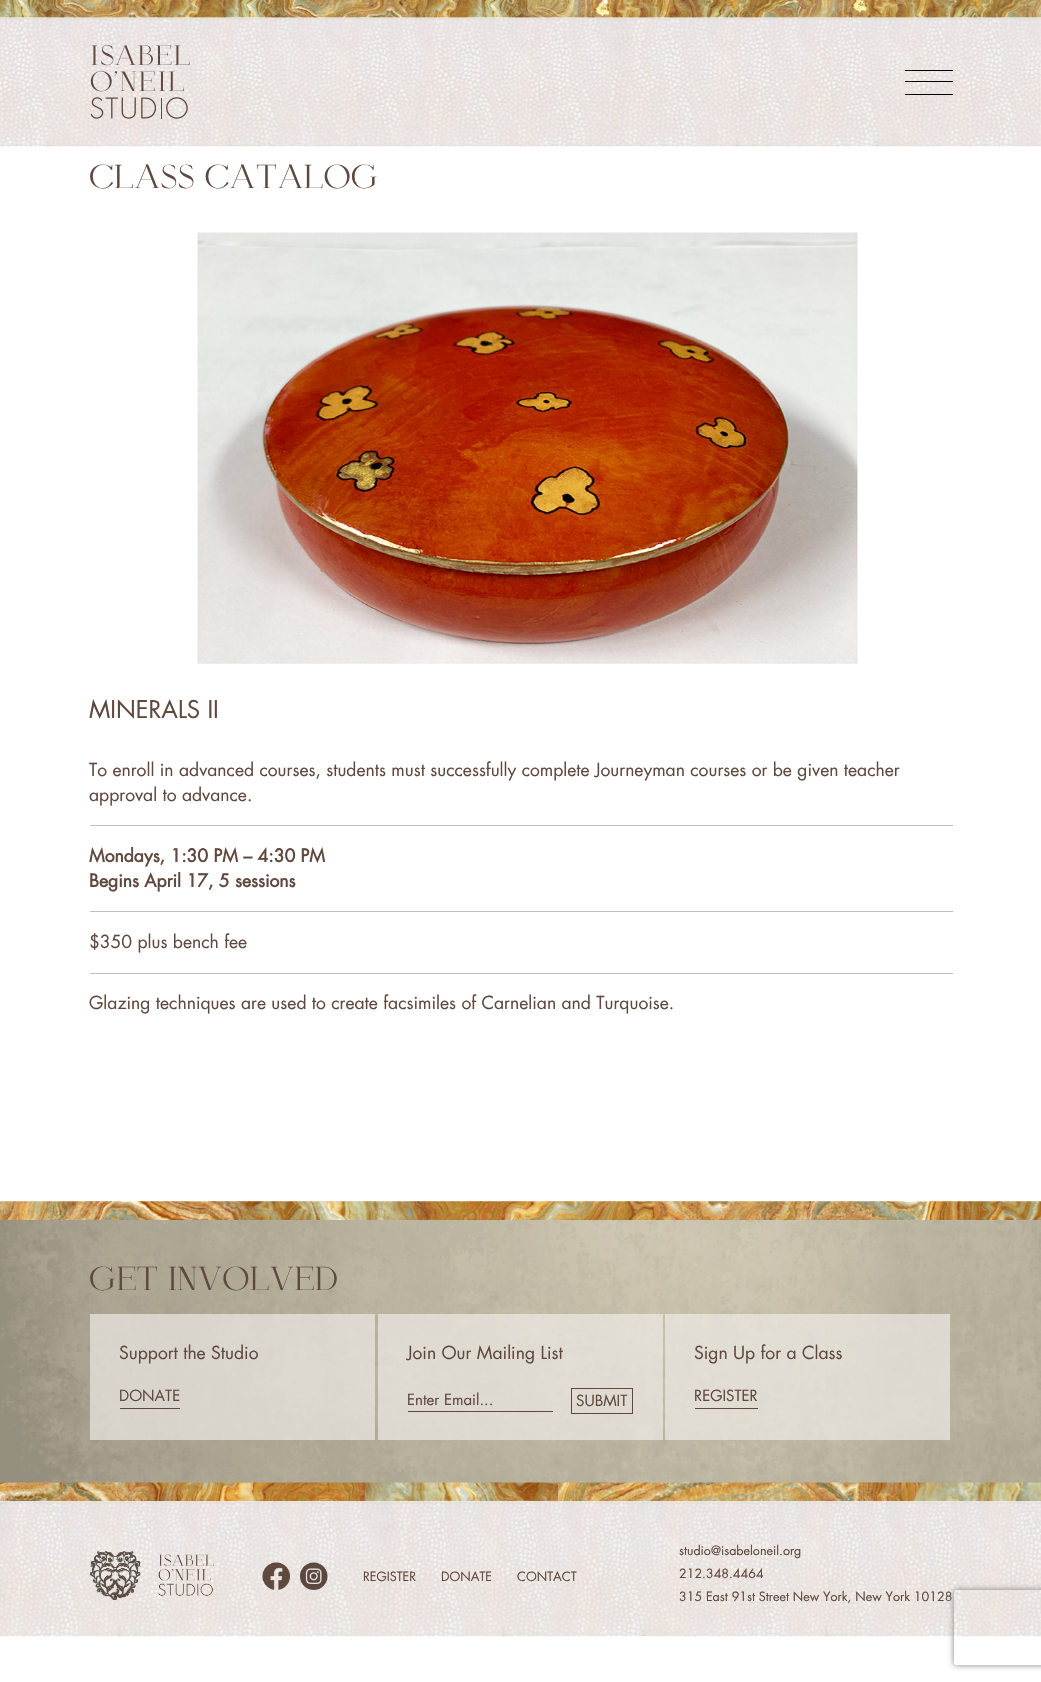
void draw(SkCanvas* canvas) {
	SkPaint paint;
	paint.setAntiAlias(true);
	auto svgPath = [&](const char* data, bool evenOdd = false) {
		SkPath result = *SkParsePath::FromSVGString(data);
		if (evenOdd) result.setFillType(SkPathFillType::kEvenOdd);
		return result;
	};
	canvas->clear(0xffffffff);
	canvas->drawImageRect(SkImages::DeferredFromEncodedData(SkData::MakeFromFileName("img1.png")), SkRect::MakeXYWH(0, 0, 1041, 18), SkSamplingOptions());
	canvas->drawImageRect(SkImages::DeferredFromEncodedData(SkData::MakeFromFileName("img2.png")), SkRect::MakeXYWH(0, 18, 1041, 129), SkSamplingOptions());
	canvas->drawImageRect(SkImages::DeferredFromEncodedData(SkData::MakeFromFileName("img3.png")), SkRect::MakeXYWH(90, 45, 100, 74), SkSamplingOptions());
	paint.setColor(0xff000000);
	canvas->drawRect(SkRect::MakeXYWH(905, 70, 48, 1), paint);
	canvas->drawRect(SkRect::MakeXYWH(905, 81, 48, 1), paint);
	canvas->drawRect(SkRect::MakeXYWH(905, 94, 48, 1), paint);
	SkFont f1(fontMgr->matchFamilyStyle("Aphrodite", SkFontStyle::Normal()), 30);
	f1.setSubpixel(true);
	paint.setColor(0xff5f483d);
	canvas->drawString("Class Catalog", 89, 188, f1, paint);
	canvas->drawImageRect(SkImages::DeferredFromEncodedData(SkData::MakeFromFileName("img4.png")), SkRect::MakeXYWH(197, 232, 661, 432), SkSamplingOptions());
	SkFont f2(fontMgr->matchFamilyStyle("Futura", SkFontStyle::Normal()), 23.75);
	f2.setSubpixel(true);
	canvas->drawString("MINERALS II", 89, 718, f2, paint);
	SkFont f3(fontMgr->matchFamilyStyle("Futura", SkFontStyle::Normal()), 17.5);
	f3.setSubpixel(true);
	canvas->drawString("To enroll in advanced courses, students must successfully complete Journeyman courses or be given teacher", 89, 776, f3, paint);
	canvas->drawString("approval to advance.", 89, 801, f3, paint);
	paint.setColor(0xffc1bfbe);
	canvas->drawRect(SkRect::MakeXYWH(90, 825, 863, 1), paint);
	SkFont f4(fontMgr->matchFamilyStyle("Futura", SkFontStyle::Bold()), 17.5);
	f4.setSubpixel(true);
	paint.setColor(0xff5f483d);
	canvas->drawString("Mondays, 1:30 PM – 4:30 PM", 89, 862, f4, paint);
	canvas->drawString("Begins April 17, 5 sessions", 89, 887, f4, paint);
	paint.setColor(0xffc1bfbe);
	canvas->drawRect(SkRect::MakeXYWH(90, 911, 863, 1), paint);
	paint.setColor(0xff5f483d);
	canvas->drawString("$350 plus bench fee", 89, 948, f3, paint);
	paint.setColor(0xffc1bfbe);
	canvas->drawRect(SkRect::MakeXYWH(90, 973, 863, 1), paint);
	paint.setColor(0xff5f483d);
	canvas->drawString("Glazing techniques are used to create facsimiles of Carnelian and Turquoise.", 89, 1009, f3, paint);
	canvas->drawImageRect(SkImages::DeferredFromEncodedData(SkData::MakeFromFileName("img5.png")), SkRect::MakeXYWH(0, 1201, 1041, 301), SkSamplingOptions());
	canvas->drawImageRect(SkImages::DeferredFromEncodedData(SkData::MakeFromFileName("img6.png")), SkRect::MakeXYWH(0, 1220, 1041, 263), SkSamplingOptions());
	canvas->drawString("Get Involved", 89, 1290, f1, paint);
	paint.setColor(0xa3f2efed);
	canvas->drawRect(SkRect::MakeXYWH(90, 1314, 285, 126), paint);
	paint.setColor(0xff5f483d);
	canvas->drawString("Support the Studio", 119, 1359, f3, paint);
	SkFont f5(fontMgr->matchFamilyStyle("Futura", SkFontStyle::Normal()), 15);
	f5.setSubpixel(true);
	canvas->drawString("DONATE", 119, 1401, f5, paint);
	canvas->drawRect(SkRect::MakeXYWH(120, 1408, 60, 1), paint);
	paint.setColor(0xa3f2efed);
	canvas->drawRect(SkRect::MakeXYWH(378, 1314, 285, 126), paint);
	paint.setColor(0xff5f483d);
	canvas->drawString("Join Our Mailing List", 407, 1359, f3, paint);
	canvas->drawRect(SkRect::MakeXYWH(408, 1411, 145, 1), paint);
	canvas->drawString("Enter Email...", 407, 1405, f5, paint);
	paint.setStroke(true);
	paint.setStrokeWidth(1);
	canvas->drawRect(SkRect::MakeXYWH(571.5, 1388.5, 61, 25), paint);
	paint.setStroke(false);
	canvas->drawString("SUBMIT", 576, 1406, f5, paint);
	paint.setColor(0xa3f2efed);
	canvas->drawRect(SkRect::MakeXYWH(665, 1314, 285, 126), paint);
	paint.setColor(0xff5f483d);
	canvas->drawString("Sign Up for a Class", 694, 1359, f3, paint);
	canvas->drawString("REGISTER", 694, 1401, f5, paint);
	canvas->drawRect(SkRect::MakeXYWH(695, 1408, 63, 1), paint);
	canvas->drawImageRect(SkImages::DeferredFromEncodedData(SkData::MakeFromFileName("img7.png")), SkRect::MakeXYWH(0, 1501, 1041, 136), SkSamplingOptions());
	canvas->drawImageRect(SkImages::DeferredFromEncodedData(SkData::MakeFromFileName("img8.png")), SkRect::MakeXYWH(90, 1551, 124, 49), SkSamplingOptions());
	canvas->drawImageRect(SkImages::DeferredFromEncodedData(SkData::MakeFromFileName("img9.png")), SkRect::MakeXYWH(262, 1562, 28, 28), SkSamplingOptions());
	canvas->drawImageRect(SkImages::DeferredFromEncodedData(SkData::MakeFromFileName("img10.png")), SkRect::MakeXYWH(300, 1562, 28, 28), SkSamplingOptions());
	SkFont f6(fontMgr->matchFamilyStyle("Futura", SkFontStyle::Normal()), 12.5);
	f6.setSubpixel(true);
	canvas->drawString("REGISTER", 363, 1581, f6, paint);
	canvas->drawString("DONATE", 441, 1581, f6, paint);
	canvas->drawString("CONTACT", 517, 1581, f6, paint);
	canvas->drawString("studio@isabeloneil.org", 679, 1555, f6, paint);
	canvas->drawString("212.348.4464", 679, 1578, f6, paint);
	canvas->drawString("315 East 91st Street New York, New York 10128", 679, 1601, f6, paint);
	canvas->save();
	canvas->clipPath(svgPath("M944 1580H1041V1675H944ZM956.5 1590H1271.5C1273 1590 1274 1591 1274 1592.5V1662.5C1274 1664 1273 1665 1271.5 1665H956.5C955 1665 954 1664 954 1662.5V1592.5C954 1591 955 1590 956.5 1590Z", true), true);
	paint.setColor(0xff808080);
	paint.setMaskFilter(SkMaskFilter::MakeBlur(kNormal_SkBlurStyle, 3));
	canvas->drawRoundRect(SkRect::MakeXYWH(954, 1590, 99, 75), 2.5, 2.5, paint);
	paint.setMaskFilter(nullptr);
	canvas->restore();
}
